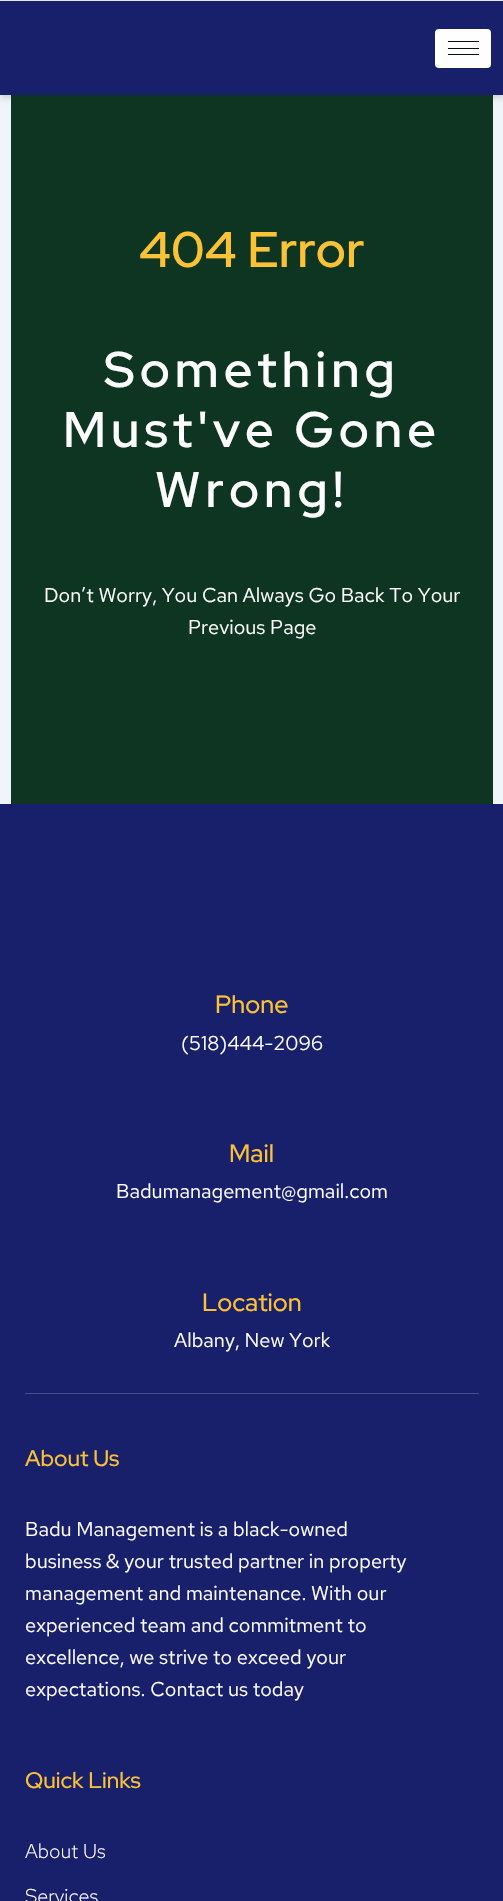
void draw(SkCanvas* canvas) {
	SkPaint paint;
	paint.setAntiAlias(true);
	auto spacedText = [&](const char* s, float x, float y, const SkFont& font, const SkPaint& ink, float letter, float word) {
		std::vector<SkGlyphID> glyphs(font.countText(s, strlen(s), SkTextEncoding::kUTF8));
		std::vector<float> xs(glyphs.size());
		font.textToGlyphs(s, strlen(s), SkTextEncoding::kUTF8, glyphs);
		font.getXPos(glyphs, xs, x);
		float extra = 0;
		for (size_t i = 0; i < glyphs.size(); i++) {
			xs[i] += extra;
			extra += letter + word * (glyphs[i] == font.unicharToGlyph(' '));
		}
		canvas->drawTextBlob(SkTextBlob::MakeFromPosHGlyphs(glyphs, xs, y, font), 0, 0, ink);
	};
	canvas->clear(0xfff0f5fa);
	paint.setColor(0x26000000);
	paint.setMaskFilter(SkMaskFilter::MakeBlur(kNormal_SkBlurStyle, 3));
	canvas->drawRect(SkRect::MakeXYWH(0, 4, 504, 94), paint);
	paint.setMaskFilter(nullptr);
	paint.setColor(0xff18206b);
	canvas->drawRect(SkRect::MakeXYWH(0, 1, 503, 94), paint);
	paint.setColor(0xfffefefe);
	canvas->drawRoundRect(SkRect::MakeXYWH(435, 29, 56, 39), 4, 4, paint);
	paint.setColor(0xff04100a);
	canvas->drawRect(SkRect::MakeXYWH(448, 41, 31, 1), paint);
	canvas->drawRect(SkRect::MakeXYWH(448, 48, 31, 1), paint);
	canvas->drawRect(SkRect::MakeXYWH(448, 54, 31, 1), paint);
	paint.setColor(0xffe8ebef);
	canvas->drawRect(SkRect::MakeXYWH(0, 0, 503, 1), paint);
	paint.setColor(0xff0d3521);
	canvas->drawRect(SkRect::MakeXYWH(11, 95, 482, 709), paint);
	SkFont f1(fontMgr->matchFamilyStyle("Red Hat Display", SkFontStyle(600, SkFontStyle::kNormal_Width, SkFontStyle::kUpright_Slant)), 50);
	f1.setSubpixel(true);
	paint.setColor(0xfffcc236);
	canvas->drawString("404 Error", 139, 267, f1, paint);
	paint.setColor(0xfffefefe);
	spacedText("Something", 104, 387, f1, paint, 5, 0);
	spacedText("Must've Gone", 63, 447, f1, paint, 5, 0);
	spacedText("Wrong!", 155, 507, f1, paint, 5, 0);
	SkFont f2(fontMgr->matchFamilyStyle("Red Hat Text", SkFontStyle::Normal()), 20);
	f2.setSubpixel(true);
	canvas->drawString("Don’t Worry, You Can Always Go Back To Your", 44, 602, f2, paint);
	canvas->drawString("Previous Page", 188, 634, f2, paint);
	paint.setColor(0xff18206b);
	canvas->drawRect(SkRect::MakeXYWH(0, 804, 503, 1097), paint);
	paint.setColor(0xff464d89);
	canvas->drawRect(SkRect::MakeXYWH(25, 1393, 454, 1), paint);
	SkFont f3(fontMgr->matchFamilyStyle("Red Hat Display", SkFontStyle(500, SkFontStyle::kNormal_Width, SkFontStyle::kUpright_Slant)), 25);
	f3.setSubpixel(true);
	paint.setColor(0xfffcc236);
	canvas->drawString("Phone", 215, 1013, f3, paint);
	paint.setColor(0xfffefefe);
	canvas->drawString("(518)444-2096", 181, 1050, f2, paint);
	paint.setColor(0xfffcc236);
	canvas->drawString("Mail", 229, 1162, f3, paint);
	paint.setColor(0xfffefefe);
	canvas->drawString("Badumanagement@gmail.com", 116, 1198, f2, paint);
	paint.setColor(0xfffcc236);
	canvas->drawString("Location", 202, 1311, f3, paint);
	paint.setColor(0xfffefefe);
	canvas->drawString("Albany, New York", 174, 1347, f2, paint);
	SkFont f4(fontMgr->matchFamilyStyle("Red Hat Display", SkFontStyle(500, SkFontStyle::kNormal_Width, SkFontStyle::kUpright_Slant)), 22.5);
	f4.setSubpixel(true);
	paint.setColor(0xfffcc236);
	canvas->drawString("About Us", 25, 1466, f4, paint);
	paint.setColor(0xfffefefe);
	canvas->drawString("Badu Management is a black-owned", 25, 1536, f2, paint);
	canvas->drawString("business & your trusted partner in property", 25, 1568, f2, paint);
	canvas->drawString("management and maintenance. With our", 25, 1600, f2, paint);
	canvas->drawString("experienced team and commitment to", 25, 1632, f2, paint);
	canvas->drawString("excellence, we strive to exceed your", 25, 1664, f2, paint);
	canvas->drawString("expectations. Contact us today", 25, 1696, f2, paint);
	paint.setColor(0xfffcc236);
	canvas->drawString("Quick Links", 25, 1788, f4, paint);
	SkFont f5(fontMgr->matchFamilyStyle("Red Hat Text", SkFontStyle(300, SkFontStyle::kNormal_Width, SkFontStyle::kUpright_Slant)), 20);
	f5.setSubpixel(true);
	paint.setColor(0xfffefefe);
	canvas->drawString("About Us", 25, 1858, f5, paint);
	canvas->drawString("Services", 25, 1903, f5, paint);
}
